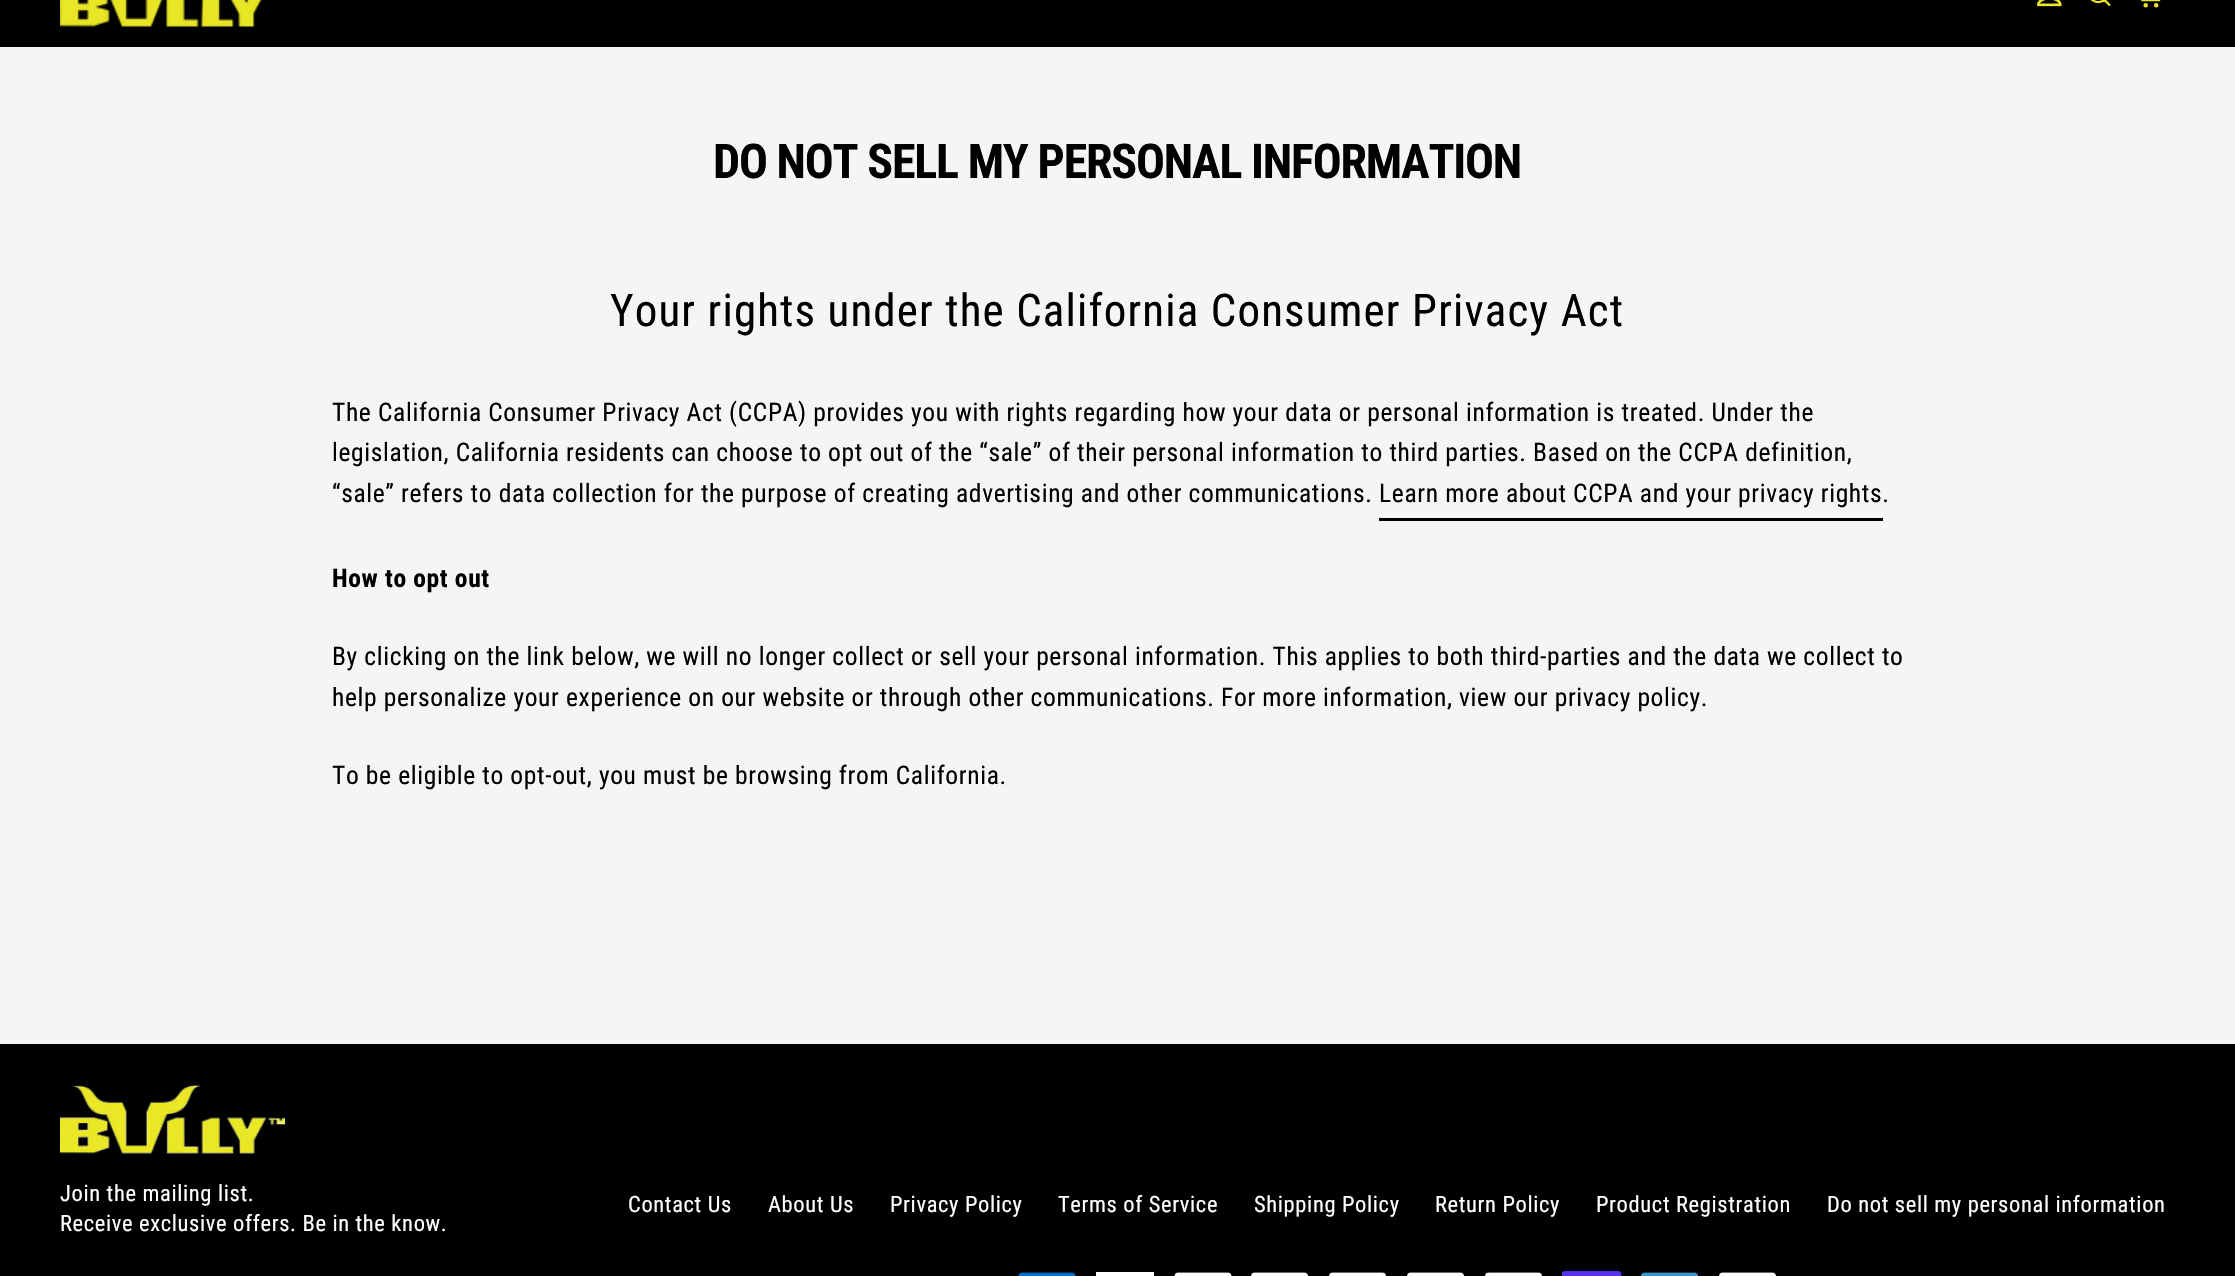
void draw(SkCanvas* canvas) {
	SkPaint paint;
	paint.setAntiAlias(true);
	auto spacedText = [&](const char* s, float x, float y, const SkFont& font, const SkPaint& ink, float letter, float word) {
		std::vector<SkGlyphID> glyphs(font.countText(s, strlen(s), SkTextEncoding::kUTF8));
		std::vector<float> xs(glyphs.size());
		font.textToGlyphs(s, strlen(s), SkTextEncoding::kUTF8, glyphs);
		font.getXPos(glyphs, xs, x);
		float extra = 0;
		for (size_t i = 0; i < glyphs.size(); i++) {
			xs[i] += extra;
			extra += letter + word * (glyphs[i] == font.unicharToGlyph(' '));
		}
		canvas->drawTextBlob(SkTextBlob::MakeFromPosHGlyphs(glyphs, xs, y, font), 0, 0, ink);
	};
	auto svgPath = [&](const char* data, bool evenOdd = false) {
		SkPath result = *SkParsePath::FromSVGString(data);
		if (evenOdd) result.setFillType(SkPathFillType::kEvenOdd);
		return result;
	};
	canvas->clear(0xfff5f5f5);
	paint.setColor(0xff000000);
	canvas->drawRect(SkRect::MakeXYWH(0, 0, 2235, 47), paint);
	canvas->drawImageRect(SkImages::DeferredFromEncodedData(SkData::MakeFromFileName("img1.png")), SkRect::MakeXYWH(60, 0, 202, 27), SkSamplingOptions());
	canvas->drawImageRect(SkImages::DeferredFromEncodedData(SkData::MakeFromFileName("img2.png")), SkRect::MakeXYWH(2037, 0, 25, 7), SkSamplingOptions());
	paint.setStroke(true);
	paint.setStrokeWidth(2.3);
	paint.setColor(0xffebe827);
	canvas->drawPath(svgPath("M2107-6.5C2107 5 2089.5 5 2089.5-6.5C2089.5-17.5 2107-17.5 2107-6.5ZM2110 5.5L2104.5 0"), paint);
	paint.setStrokeWidth(2.6);
	canvas->drawPath(svgPath("M2139-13.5H2163.5L2159 0H2142.5L2137.5-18.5H2133"), paint);
	canvas->drawCircle(2145.7, 5.3, 1, paint);
	canvas->drawCircle(2156.2, 5.3, 1, paint);
	SkFont f1(fontMgr->matchFamilyStyle("Roboto Condensed", SkFontStyle::Bold()), 48);
	f1.setSubpixel(true);
	paint.setStroke(false);
	paint.setColor(0xff000000);
	spacedText("DO NOT SELL MY PERSONAL INFORMATION", 713, 178, f1, paint, -1.2, 0);
	SkFont f2(fontMgr->matchFamilyStyle("Roboto Condensed", SkFontStyle::Normal()), 45);
	f2.setSubpixel(true);
	spacedText("Your rights under the California Consumer Privacy Act", 610, 326, f2, paint, 1.12, 0);
	SkFont f3(fontMgr->matchFamilyStyle("Roboto Condensed", SkFontStyle::Normal()), 25.5);
	f3.setSubpixel(true);
	spacedText("The California Consumer Privacy Act (CCPA) provides you with rights regarding how your data or personal information is treated. Under the", 332, 421, f3, paint, 0.64, 0);
	spacedText("legislation, California residents can choose to opt out of the “sale” of their personal information to third parties. Based on the CCPA definition,", 332, 461, f3, paint, 0.64, 0);
	spacedText("“sale” refers to data collection for the purpose of creating advertising and other communications. Learn more about CCPA and your privacy rights.", 332, 502, f3, paint, 0.64, 0);
	canvas->drawRect(SkRect::MakeXYWH(1379, 518, 504, 3), paint);
	SkFont f4(fontMgr->matchFamilyStyle("Roboto Condensed", SkFontStyle::Bold()), 25.5);
	f4.setSubpixel(true);
	spacedText("How to opt out", 332, 587, f4, paint, 0.64, 0);
	spacedText("By clicking on the link below, we will no longer collect or sell your personal information. This applies to both third-parties and the data we collect to", 332, 665, f3, paint, 0.64, 0);
	spacedText("help personalize your experience on our website or through other communications. For more information, view our privacy policy.", 332, 706, f3, paint, 0.64, 0);
	spacedText("To be eligible to opt-out, you must be browsing from California.", 332, 784, f3, paint, 0.64, 0);
	canvas->drawRect(SkRect::MakeXYWH(0, 1044, 2235, 232), paint);
	canvas->drawImageRect(SkImages::DeferredFromEncodedData(SkData::MakeFromFileName("img3.png")), SkRect::MakeXYWH(60, 1084, 225, 70), SkSamplingOptions());
	SkFont f5(fontMgr->matchFamilyStyle("Roboto Condensed", SkFontStyle::Normal()), 22.5);
	f5.setSubpixel(true);
	paint.setColor(0xffffffff);
	spacedText("Join the mailing list.", 60, 1201, f5, paint, 0.64, 0);
	spacedText("Receive exclusive offers. Be in the know.", 60, 1231, f5, paint, 0.64, 0);
	spacedText("Contact Us", 628, 1212, f5, paint, 0.64, 0);
	spacedText("About Us", 768, 1212, f5, paint, 0.64, 0);
	spacedText("Privacy Policy", 890, 1212, f5, paint, 0.64, 0);
	spacedText("Terms of Service", 1058, 1212, f5, paint, 0.64, 0);
	spacedText("Shipping Policy", 1254, 1212, f5, paint, 0.64, 0);
	spacedText("Return Policy", 1435, 1212, f5, paint, 0.64, 0);
	spacedText("Product Registration", 1596, 1212, f5, paint, 0.64, 0);
	spacedText("Do not sell my personal information", 1827, 1212, f5, paint, 0.64, 0);
	canvas->drawImageRect(SkImages::DeferredFromEncodedData(SkData::MakeFromFileName("img4.png")), SkRect::MakeXYWH(1018, 1272, 58, 4), SkSamplingOptions());
	canvas->drawRect(SkRect::MakeXYWH(1096, 1272, 58, 4), paint);
	canvas->drawImageRect(SkImages::DeferredFromEncodedData(SkData::MakeFromFileName("img5.png")), SkRect::MakeXYWH(1174, 1272, 58, 4), SkSamplingOptions());
	canvas->drawImageRect(SkImages::DeferredFromEncodedData(SkData::MakeFromFileName("img6.png")), SkRect::MakeXYWH(1251, 1272, 57, 4), SkSamplingOptions());
	canvas->drawImageRect(SkImages::DeferredFromEncodedData(SkData::MakeFromFileName("img6.png")), SkRect::MakeXYWH(1329, 1272, 57, 4), SkSamplingOptions());
	canvas->drawImageRect(SkImages::DeferredFromEncodedData(SkData::MakeFromFileName("img6.png")), SkRect::MakeXYWH(1407, 1272, 57, 4), SkSamplingOptions());
	canvas->drawImageRect(SkImages::DeferredFromEncodedData(SkData::MakeFromFileName("img6.png")), SkRect::MakeXYWH(1485, 1272, 57, 4), SkSamplingOptions());
	canvas->drawImageRect(SkImages::DeferredFromEncodedData(SkData::MakeFromFileName("img7.png")), SkRect::MakeXYWH(1562, 1271, 60, 5), SkSamplingOptions());
	canvas->drawImageRect(SkImages::DeferredFromEncodedData(SkData::MakeFromFileName("img8.png")), SkRect::MakeXYWH(1641, 1272, 57, 4), SkSamplingOptions());
	canvas->drawImageRect(SkImages::DeferredFromEncodedData(SkData::MakeFromFileName("img6.png")), SkRect::MakeXYWH(1719, 1272, 57, 4), SkSamplingOptions());
}
